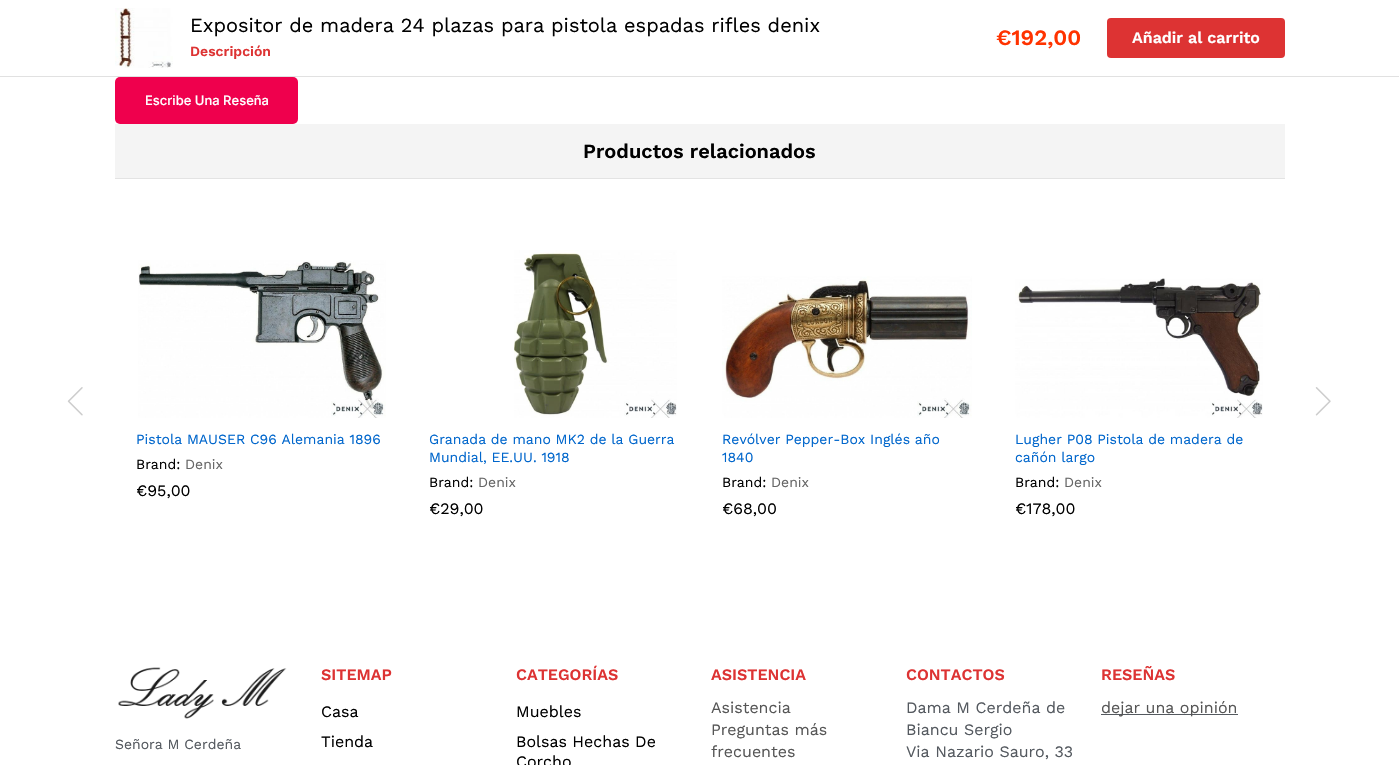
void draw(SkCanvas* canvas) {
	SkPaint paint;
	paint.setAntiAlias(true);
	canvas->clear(0xffffffff);
	paint.setColor(0xffe1e1e1);
	canvas->drawRect(SkRect::MakeXYWH(0, 76, 1399, 1), paint);
	canvas->drawImageRect(SkImages::DeferredFromEncodedData(SkData::MakeFromFileName("img1.png")), SkRect::MakeXYWH(115, 8, 58, 60), SkSamplingOptions());
	SkFont f1(fontMgr->matchFamilyStyle("Work Sans", SkFontStyle::Normal()), 20);
	f1.setSubpixel(true);
	paint.setColor(0xff000000);
	canvas->drawString("Expositor de madera 24 plazas para pistola espadas rifles denix", 190, 32, f1, paint);
	SkFont f2(fontMgr->matchFamilyStyle("Work Sans", SkFontStyle(600, SkFontStyle::kNormal_Width, SkFontStyle::kUpright_Slant)), 14);
	f2.setSubpixel(true);
	paint.setColor(0xffdd3333);
	canvas->drawString("Descripción", 190, 56, f2, paint);
	SkFont f3(fontMgr->matchFamilyStyle("Work Sans", SkFontStyle(600, SkFontStyle::kNormal_Width, SkFontStyle::kUpright_Slant)), 22);
	f3.setSubpixel(true);
	paint.setColor(0xffff3300);
	canvas->drawString("€192,00", 996, 45, f3, paint);
	paint.setColor(0xffdd3333);
	canvas->drawRoundRect(SkRect::MakeXYWH(1107, 18, 178, 40), 4, 4, paint);
	SkFont f4(fontMgr->matchFamilyStyle("Work Sans", SkFontStyle(600, SkFontStyle::kNormal_Width, SkFontStyle::kUpright_Slant)), 16);
	f4.setSubpixel(true);
	paint.setColor(0xffffffff);
	canvas->drawString("Añadir al carrito", 1132, 43, f4, paint);
	paint.setColor(0xffef004d);
	canvas->drawRoundRect(SkRect::MakeXYWH(115, 77, 183, 47), 5, 5, paint);
	SkFont f5(fontMgr->matchFamilyStyle("Inter", SkFontStyle(500, SkFontStyle::kNormal_Width, SkFontStyle::kUpright_Slant)), 13);
	f5.setSubpixel(true);
	paint.setColor(0xffffffff);
	canvas->drawString("Escribe Una Reseña", 145, 105, f5, paint);
	paint.setColor(0xfff4f4f4);
	canvas->drawRect(SkRect::MakeXYWH(115, 124, 1170, 54), paint);
	paint.setColor(0xffe3e3e3);
	canvas->drawRect(SkRect::MakeXYWH(115, 178, 1170, 1), paint);
	SkFont f6(fontMgr->matchFamilyStyle("Work Sans", SkFontStyle(600, SkFontStyle::kNormal_Width, SkFontStyle::kUpright_Slant)), 20);
	f6.setSubpixel(true);
	paint.setColor(0xff000000);
	canvas->drawString("Productos relacionados", 583, 158, f6, paint);
	canvas->drawImageRect(SkImages::DeferredFromEncodedData(SkData::MakeFromFileName("img2.png")), SkRect::MakeXYWH(67, 387, 16, 29), SkSamplingOptions());
	canvas->drawImageRect(SkImages::DeferredFromEncodedData(SkData::MakeFromFileName("img3.png")), SkRect::MakeXYWH(1315, 387, 16, 29), SkSamplingOptions());
	canvas->drawImageRect(SkImages::DeferredFromEncodedData(SkData::MakeFromFileName("img4.png")), SkRect::MakeXYWH(138, 260, 248, 158), SkSamplingOptions());
	SkFont f7(fontMgr->matchFamilyStyle("Work Sans", SkFontStyle::Normal()), 14);
	f7.setSubpixel(true);
	paint.setColor(0xff0066cc);
	canvas->drawString("Pistola MAUSER C96 Alemania 1896", 136, 444, f7, paint);
	paint.setColor(0xff000000);
	canvas->drawString("Brand:", 136, 469, f7, paint);
	paint.setColor(0xff666666);
	canvas->drawString("Denix", 185, 469, f7, paint);
	SkFont f8(fontMgr->matchFamilyStyle("Work Sans", SkFontStyle::Normal()), 16);
	f8.setSubpixel(true);
	paint.setColor(0xff000000);
	canvas->drawString("€95,00", 136, 496, f8, paint);
	canvas->drawImageRect(SkImages::DeferredFromEncodedData(SkData::MakeFromFileName("img5.png")), SkRect::MakeXYWH(514, 250, 163, 168), SkSamplingOptions());
	paint.setColor(0xff0066cc);
	canvas->drawString("Granada de mano MK2 de la Guerra", 429, 444, f7, paint);
	canvas->drawString("Mundial, EE.UU. 1918", 429, 462, f7, paint);
	paint.setColor(0xff000000);
	canvas->drawString("Brand:", 429, 487, f7, paint);
	paint.setColor(0xff666666);
	canvas->drawString("Denix", 478, 487, f7, paint);
	paint.setColor(0xff000000);
	canvas->drawString("€29,00", 429, 514, f8, paint);
	canvas->drawImageRect(SkImages::DeferredFromEncodedData(SkData::MakeFromFileName("img6.png")), SkRect::MakeXYWH(722, 276, 250, 142), SkSamplingOptions());
	paint.setColor(0xff0066cc);
	canvas->drawString("Revólver Pepper-Box Inglés año", 722, 444, f7, paint);
	canvas->drawString("1840", 722, 462, f7, paint);
	paint.setColor(0xff000000);
	canvas->drawString("Brand:", 722, 487, f7, paint);
	paint.setColor(0xff666666);
	canvas->drawString("Denix", 771, 487, f7, paint);
	paint.setColor(0xff000000);
	canvas->drawString("€68,00", 722, 514, f8, paint);
	canvas->drawImageRect(SkImages::DeferredFromEncodedData(SkData::MakeFromFileName("img7.png")), SkRect::MakeXYWH(1015, 278, 248, 140), SkSamplingOptions());
	paint.setColor(0xff0066cc);
	canvas->drawString("Lugher P08 Pistola de madera de", 1015, 444, f7, paint);
	canvas->drawString("cañón largo", 1015, 462, f7, paint);
	paint.setColor(0xff000000);
	canvas->drawString("Brand:", 1015, 487, f7, paint);
	paint.setColor(0xff666666);
	canvas->drawString("Denix", 1064, 487, f7, paint);
	paint.setColor(0xff000000);
	canvas->drawString("€178,00", 1015, 514, f8, paint);
	canvas->drawImageRect(SkImages::DeferredFromEncodedData(SkData::MakeFromFileName("img8.png")), SkRect::MakeXYWH(118, 667, 169, 52), SkSamplingOptions());
	paint.setColor(0xff54595f);
	canvas->drawString("Señora M Cerdeña", 115, 749, f7, paint);
	paint.setColor(0xffdd3333);
	canvas->drawString("SITEMAP", 321, 680, f4, paint);
	paint.setColor(0xff000000);
	canvas->drawString("Casa", 321, 717, f8, paint);
	canvas->drawString("Tienda", 321, 747, f8, paint);
	paint.setColor(0xffdd3333);
	canvas->drawString("CATEGORÍAS", 516, 680, f4, paint);
	paint.setColor(0xff000000);
	canvas->drawString("Muebles", 516, 717, f8, paint);
	canvas->drawString("Bolsas Hechas De", 516, 747, f8, paint);
	canvas->drawString("Corcho", 516, 767, f8, paint);
	paint.setColor(0xffdd3333);
	canvas->drawString("ASISTENCIA", 711, 680, f4, paint);
	paint.setColor(0xff565656);
	canvas->drawString("Asistencia", 711, 713, f8, paint);
	canvas->drawString("Preguntas más", 711, 735, f8, paint);
	canvas->drawString("frecuentes", 711, 757, f8, paint);
	paint.setColor(0xffdd3333);
	canvas->drawString("CONTACTOS", 906, 680, f4, paint);
	paint.setColor(0xff54595f);
	canvas->drawString("Dama M Cerdeña de", 906, 713, f8, paint);
	canvas->drawString("Biancu Sergio", 906, 735, f8, paint);
	canvas->drawString("Via Nazario Sauro, 33", 906, 757, f8, paint);
	paint.setColor(0xffdd3333);
	canvas->drawString("RESEÑAS", 1101, 680, f4, paint);
	paint.setColor(0xff54595f);
	canvas->drawRect(SkRect::MakeXYWH(1101, 714, 137, 1), paint);
	paint.setColor(0xff565656);
	canvas->drawString("dejar una opinión", 1101, 713, f8, paint);
}
